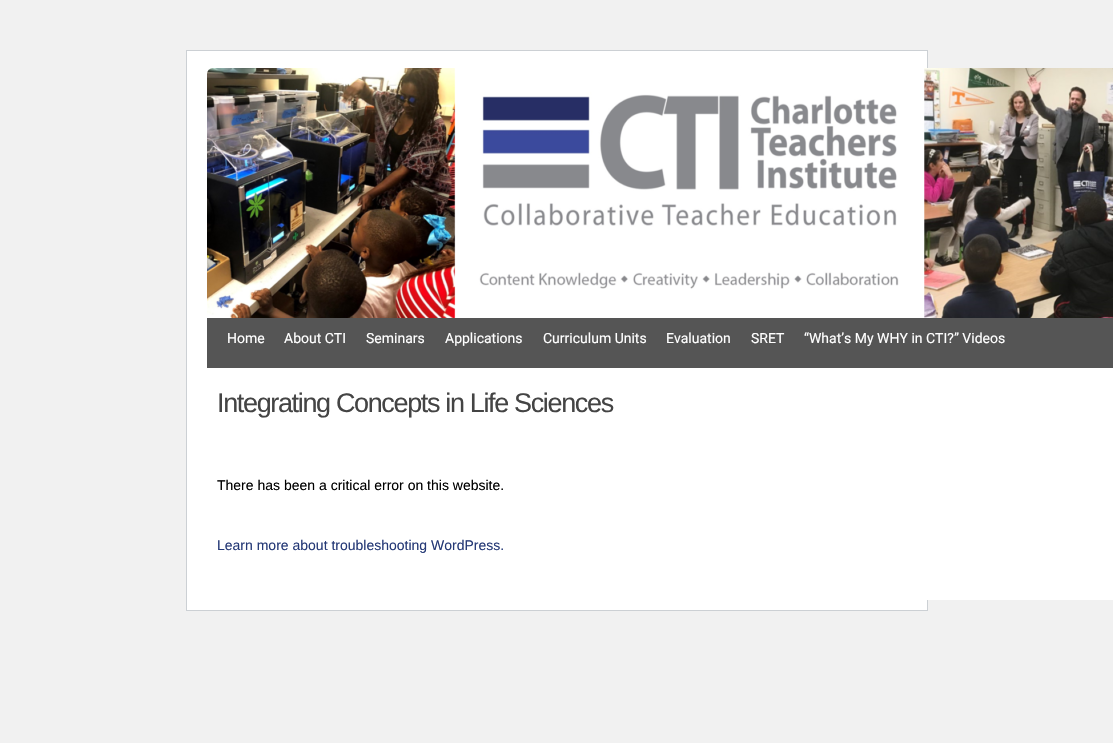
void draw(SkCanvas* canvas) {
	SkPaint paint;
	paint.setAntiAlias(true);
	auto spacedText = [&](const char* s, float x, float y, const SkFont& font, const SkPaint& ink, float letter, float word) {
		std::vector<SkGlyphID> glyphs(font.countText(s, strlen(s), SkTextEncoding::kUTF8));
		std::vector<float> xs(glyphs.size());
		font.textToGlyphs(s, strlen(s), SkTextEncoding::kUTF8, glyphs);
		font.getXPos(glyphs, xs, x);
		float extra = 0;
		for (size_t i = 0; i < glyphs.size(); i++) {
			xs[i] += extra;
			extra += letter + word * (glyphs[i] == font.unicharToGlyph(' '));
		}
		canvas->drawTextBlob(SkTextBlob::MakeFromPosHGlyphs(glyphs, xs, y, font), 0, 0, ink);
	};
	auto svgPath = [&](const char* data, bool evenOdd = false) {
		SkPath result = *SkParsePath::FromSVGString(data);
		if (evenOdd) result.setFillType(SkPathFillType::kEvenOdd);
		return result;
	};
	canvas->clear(0xfff1f1f1);
	paint.setColor(0xffffffff);
	canvas->drawRect(SkRect::MakeXYWH(186.5, 50.5, 741, 560), paint);
	paint.setStroke(true);
	paint.setStrokeWidth(1);
	paint.setColor(0xffccd0d4);
	canvas->drawRect(SkRect::MakeXYWH(186.5, 50.5, 741, 560), paint);
	canvas->drawImageRect(SkImages::DeferredFromEncodedData(SkData::MakeFromFileName("img1.png")), SkRect::MakeXYWH(207, 68, 906, 250), SkSamplingOptions());
	paint.setStroke(false);
	paint.setColor(0xffffffff);
	canvas->drawPath(svgPath("M207 318H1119V594C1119 597.5 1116.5 600 1113 600H213C209.5 600 207 597.5 207 594Z"), paint);
	paint.setColor(0xff555555);
	canvas->drawRect(SkRect::MakeXYWH(207, 318, 906, 50), paint);
	SkFont f1(fontMgr->matchFamilyStyle("Roboto", SkFontStyle::Normal()), 14);
	f1.setSubpixel(true);
	paint.setColor(0xffffffff);
	canvas->drawString("Home", 227, 343, f1, paint);
	canvas->drawString("About CTI", 284, 343, f1, paint);
	canvas->drawString("Seminars", 366, 343, f1, paint);
	canvas->drawString("Applications", 445, 343, f1, paint);
	canvas->drawString("Curriculum Units", 543, 343, f1, paint);
	canvas->drawString("Evaluation", 666, 343, f1, paint);
	canvas->drawString("SRET", 751, 343, f1, paint);
	canvas->drawString("“What’s My WHY in CTI?” Videos", 804, 343, f1, paint);
	SkFont f2(fontMgr->matchFamilyStyle("Liberation Sans", SkFontStyle::Normal()), 27);
	f2.setSubpixel(true);
	paint.setColor(0xff444444);
	spacedText("Integrating Concepts in Life Sciences", 217, 412, f2, paint, -1.35, 0);
	SkFont f3(fontMgr->matchFamilyStyle("Liberation Sans", SkFontStyle::Normal()), 14);
	f3.setSubpixel(true);
	paint.setColor(0xff000000);
	canvas->drawString("There has been a critical error on this website.", 217, 490, f3, paint);
	paint.setColor(0xff253976);
	canvas->drawString("Learn more about troubleshooting WordPress.", 217, 550, f3, paint);
}
